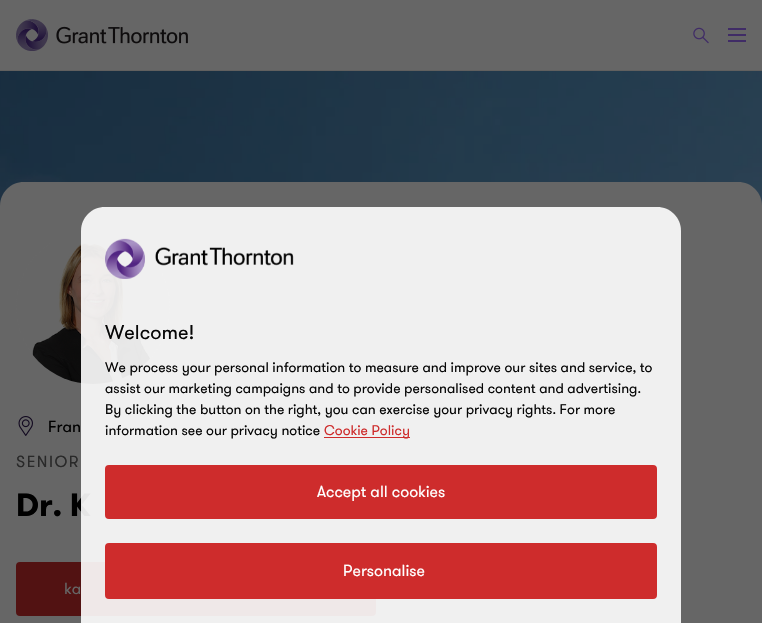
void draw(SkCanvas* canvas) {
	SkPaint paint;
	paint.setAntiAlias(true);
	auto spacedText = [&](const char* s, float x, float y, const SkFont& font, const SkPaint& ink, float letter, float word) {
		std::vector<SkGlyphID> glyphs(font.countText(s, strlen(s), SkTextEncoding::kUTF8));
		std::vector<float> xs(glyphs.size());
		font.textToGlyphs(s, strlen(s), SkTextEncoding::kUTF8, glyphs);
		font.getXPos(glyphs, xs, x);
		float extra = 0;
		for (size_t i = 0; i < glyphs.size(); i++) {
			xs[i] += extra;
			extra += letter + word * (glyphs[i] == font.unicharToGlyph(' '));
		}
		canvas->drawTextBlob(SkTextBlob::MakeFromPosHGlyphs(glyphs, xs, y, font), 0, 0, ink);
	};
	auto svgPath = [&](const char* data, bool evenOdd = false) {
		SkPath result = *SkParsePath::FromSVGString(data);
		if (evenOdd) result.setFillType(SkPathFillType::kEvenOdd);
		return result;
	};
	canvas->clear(0xffffffff);
	paint.setColor(0xff666666);
	canvas->drawRect(SkRect::MakeXYWH(-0.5, -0.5, 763, 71), paint);
	paint.setStroke(true);
	paint.setStrokeWidth(1);
	paint.setColor(0xff61605f);
	canvas->drawRect(SkRect::MakeXYWH(-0.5, -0.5, 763, 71), paint);
	canvas->drawImageRect(SkImages::DeferredFromEncodedData(SkData::MakeFromFileName("img1.png")), SkRect::MakeXYWH(16, 19, 172, 32), SkSamplingOptions());
	canvas->drawImageRect(SkImages::DeferredFromEncodedData(SkData::MakeFromFileName("img2.png")), SkRect::MakeXYWH(693, 27, 16, 17), SkSamplingOptions());
	paint.setStroke(false);
	paint.setColor(0xff402c66);
	canvas->drawRect(SkRect::MakeXYWH(728, 28, 18, 2), paint);
	canvas->drawRect(SkRect::MakeXYWH(728, 34, 18, 2), paint);
	canvas->drawRect(SkRect::MakeXYWH(728, 40, 18, 2), paint);
	canvas->drawImageRect(SkImages::DeferredFromEncodedData(SkData::MakeFromFileName("img3.png")), SkRect::MakeXYWH(0, 71, 762, 135), SkSamplingOptions());
	paint.setColor(0xff666666);
	canvas->drawPath(svgPath("M24 182H738C751.5 182 762 192.5 762 206V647H0V206C0 192.5 10.5 182 24 182Z"), paint);
	canvas->drawImageRect(SkImages::DeferredFromEncodedData(SkData::MakeFromFileName("img4.png")), SkRect::MakeXYWH(16, 243, 154, 141), SkSamplingOptions());
	canvas->drawImageRect(SkImages::DeferredFromEncodedData(SkData::MakeFromFileName("img5.png")), SkRect::MakeXYWH(18, 416, 15, 20), SkSamplingOptions());
	SkFont f1(fontMgr->matchFamilyStyle("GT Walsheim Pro", SkFontStyle::Normal()), 16);
	f1.setSubpixel(true);
	paint.setColor(0xff000000);
	canvas->drawString("Fran", 48, 432, f1, paint);
	paint.setColor(0xff292929);
	spacedText("SENIOR", 16, 467, f1, paint, 1.5, 0);
	SkFont f2(fontMgr->matchFamilyStyle("GT Walsheim Pro", SkFontStyle::Bold()), 32);
	f2.setSubpixel(true);
	paint.setColor(0xff000000);
	canvas->drawString("Dr. K", 16, 516, f2, paint);
	paint.setColor(0xff521212);
	canvas->drawRoundRect(SkRect::MakeXYWH(17, 563, 358, 52), 3, 3, paint);
	paint.setStroke(true);
	paint.setStrokeWidth(2);
	canvas->drawRoundRect(SkRect::MakeXYWH(17, 563, 358, 52), 3, 3, paint);
	paint.setStroke(false);
	paint.setColor(0xff666666);
	canvas->drawString("ka", 64, 594, f1, paint);
	paint.setColor(0xe6ffffff);
	canvas->drawPath(svgPath("M105 207H657C670.5 207 681 217.5 681 231V623H81V231C81 217.5 91.5 207 105 207Z"), paint);
	canvas->drawImageRect(SkImages::DeferredFromEncodedData(SkData::MakeFromFileName("img6.png")), SkRect::MakeXYWH(105, 238, 189, 41), SkSamplingOptions());
	SkFont f3(fontMgr->matchFamilyStyle("GT Walsheim Pro", SkFontStyle::Normal()), 20);
	f3.setSubpixel(true);
	paint.setColor(0xff070707);
	canvas->drawString("Welcome!", 105, 339, f3, paint);
	SkFont f4(fontMgr->matchFamilyStyle("GT Walsheim Pro", SkFontStyle::Normal()), 14);
	f4.setSubpixel(true);
	canvas->drawString("We process your personal information to measure and improve our sites and service, to", 105, 372, f4, paint);
	canvas->drawString("assist our marketing campaigns and to provide personalised content and advertising.", 105, 393, f4, paint);
	canvas->drawString("By clicking the button on the right, you can exercise your privacy rights. For more", 105, 414, f4, paint);
	canvas->drawString("information see our privacy notice", 105, 435, f4, paint);
	paint.setColor(0xffce2c2c);
	canvas->drawRect(SkRect::MakeXYWH(324, 437, 86, 1), paint);
	canvas->drawString("Cookie Policy", 324, 435, f4, paint);
	canvas->drawRoundRect(SkRect::MakeXYWH(106, 466, 550, 52), 3, 3, paint);
	paint.setStroke(true);
	canvas->drawRoundRect(SkRect::MakeXYWH(106, 466, 550, 52), 3, 3, paint);
	paint.setStroke(false);
	paint.setColor(0xffffffff);
	canvas->drawString("Accept all cookies", 317, 497, f1, paint);
	paint.setColor(0xffce2c2c);
	canvas->drawRoundRect(SkRect::MakeXYWH(106, 544, 550, 54), 3, 3, paint);
	paint.setStroke(true);
	canvas->drawRoundRect(SkRect::MakeXYWH(106, 544, 550, 54), 3, 3, paint);
	paint.setStroke(false);
	paint.setColor(0xffffffff);
	canvas->drawString("Personalise", 343, 576, f1, paint);
}
